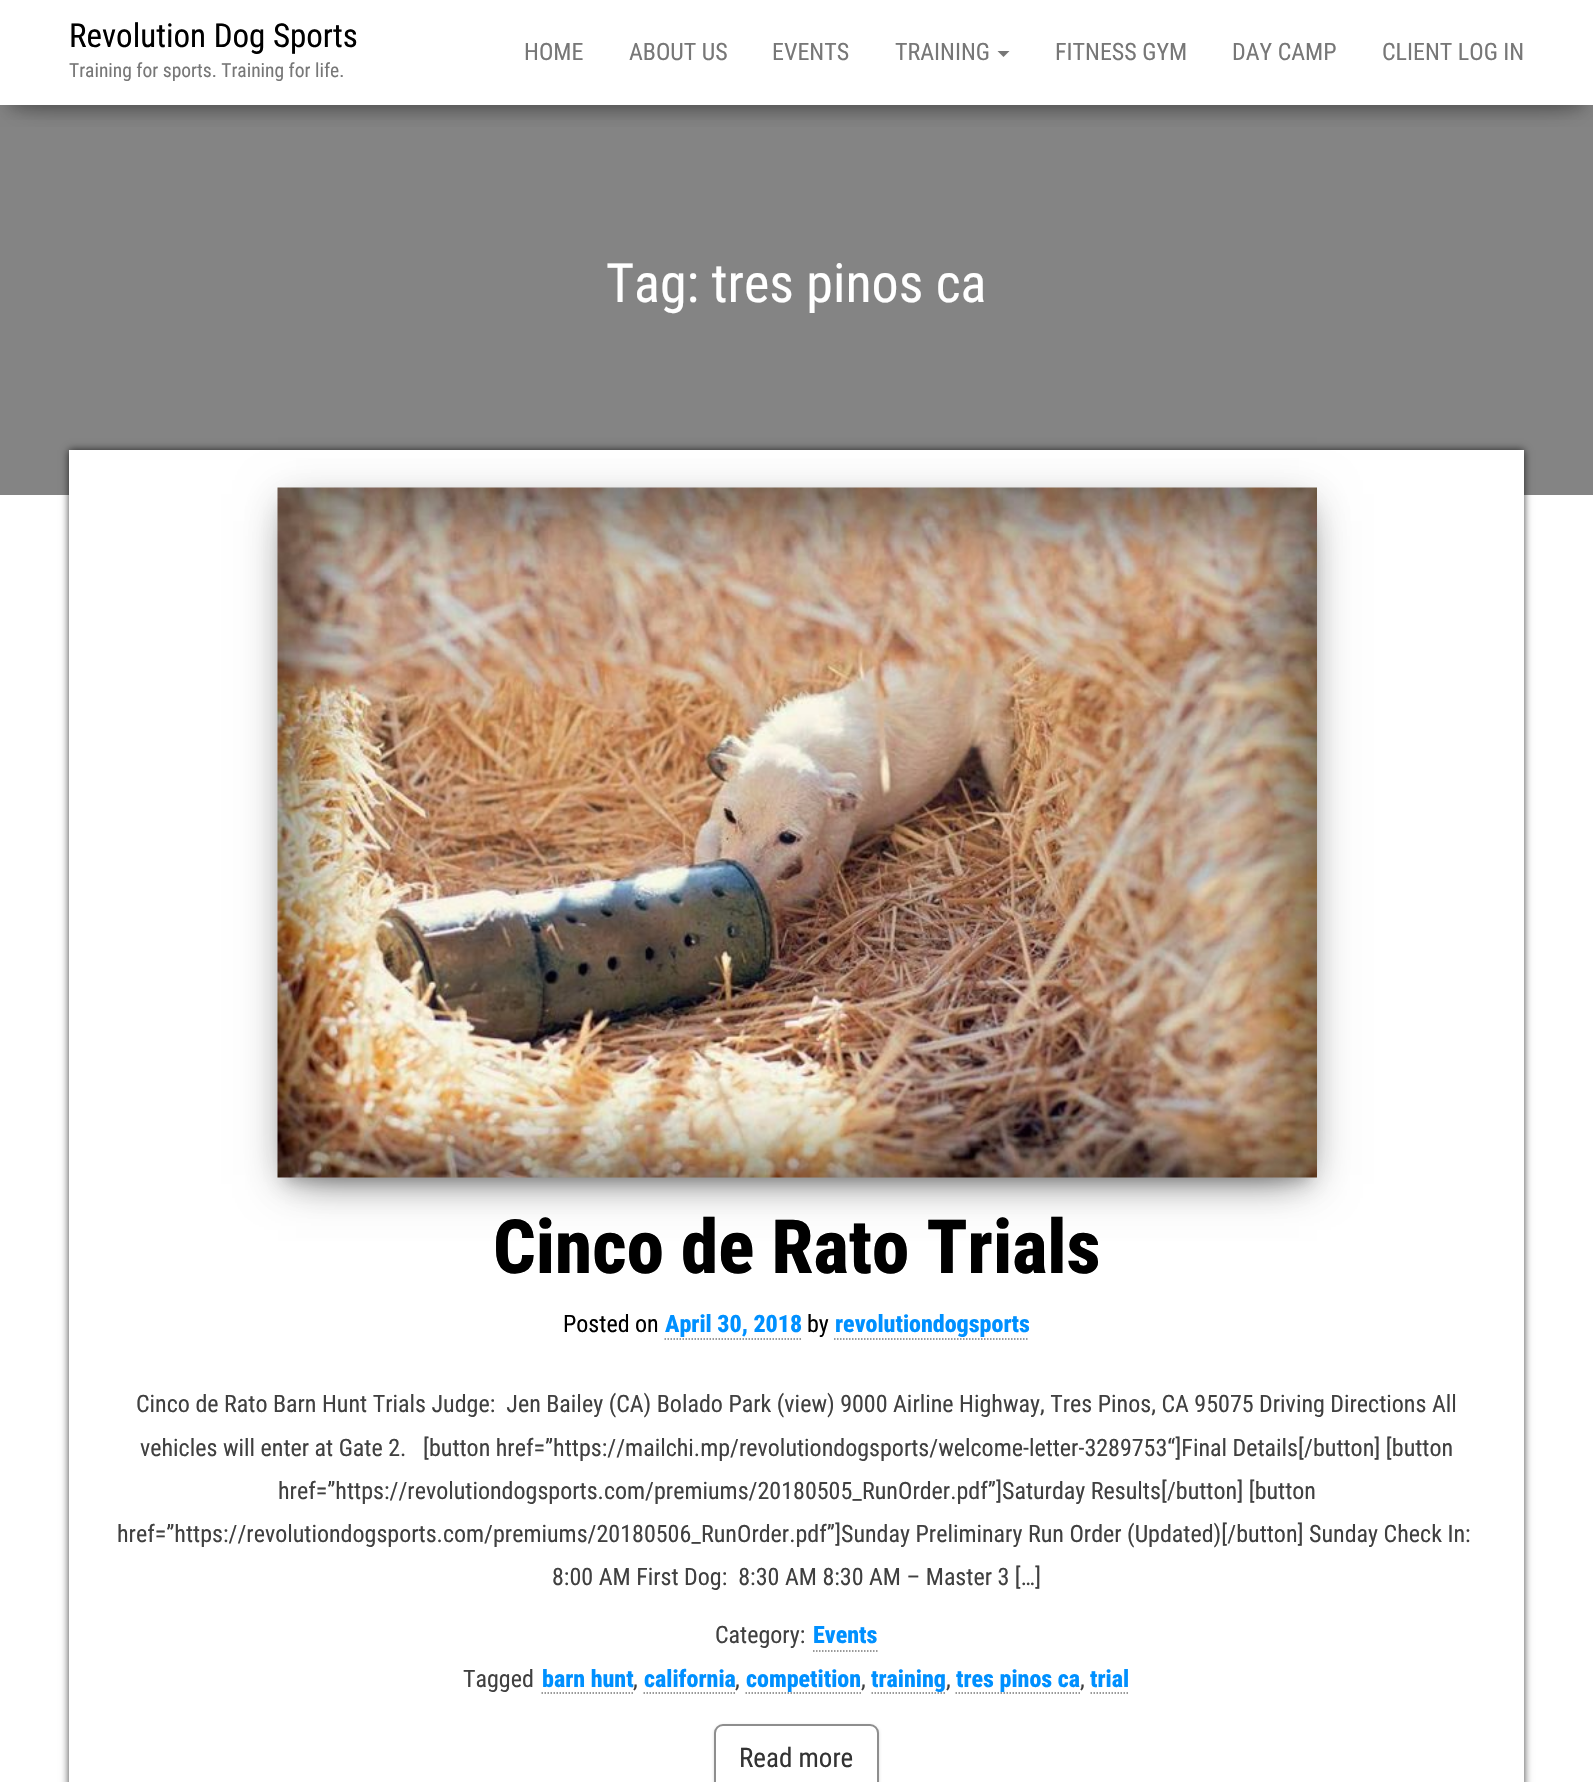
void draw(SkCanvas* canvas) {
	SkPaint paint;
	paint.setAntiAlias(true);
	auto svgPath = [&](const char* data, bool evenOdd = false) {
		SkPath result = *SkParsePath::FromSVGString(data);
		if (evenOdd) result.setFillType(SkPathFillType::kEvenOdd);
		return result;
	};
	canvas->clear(0xffffffff);
	paint.setColor(0xff848484);
	canvas->drawRect(SkRect::MakeXYWH(0, 105, 1593, 390), paint);
	canvas->save();
	canvas->clipRect(SkRect::MakeXYWH(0, 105, 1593, 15));
	paint.setColor(0x33000000);
	paint.setMaskFilter(SkMaskFilter::MakeBlur(kNormal_SkBlurStyle, 7.5));
	canvas->drawRect(SkRect::MakeXYWH(8, 20, 1578, 90), paint);
	paint.setMaskFilter(nullptr);
	canvas->restore();
	canvas->save();
	canvas->clipRect(SkRect::MakeXYWH(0, 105, 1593, 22));
	paint.setColor(0x6b000000);
	paint.setMaskFilter(SkMaskFilter::MakeBlur(kNormal_SkBlurStyle, 15));
	canvas->drawRect(SkRect::MakeXYWH(18, 33, 1557, 69), paint);
	paint.setMaskFilter(nullptr);
	canvas->restore();
	SkFont f1(fontMgr->matchFamilyStyle("Roboto Condensed", SkFontStyle::Normal()), 33);
	f1.setSubpixel(true);
	paint.setColor(0xff000000);
	canvas->drawString("Revolution Dog Sports", 69, 47, f1, paint);
	SkFont f2(fontMgr->matchFamilyStyle("Roboto Condensed", SkFontStyle::Normal()), 19.5);
	f2.setSubpixel(true);
	paint.setColor(0xff777777);
	canvas->drawString("Training for sports. Training for life.", 69, 77, f2, paint);
	SkFont f3(fontMgr->matchFamilyStyle("Roboto Condensed", SkFontStyle::Normal()), 24);
	f3.setSubpixel(true);
	canvas->drawString("HOME", 524, 60, f3, paint);
	canvas->drawString("ABOUT US", 629, 60, f3, paint);
	canvas->drawString("EVENTS", 772, 60, f3, paint);
	canvas->drawString("TRAINING", 895, 60, f3, paint);
	canvas->drawPath(svgPath("M997.5 51H1009.5L1003.5 57Z"), paint);
	canvas->drawString("FITNESS GYM", 1055, 60, f3, paint);
	canvas->drawString("DAY CAMP", 1232, 60, f3, paint);
	canvas->drawString("CLIENT LOG IN", 1382, 60, f3, paint);
	SkFont f4(fontMgr->matchFamilyStyle("Roboto Condensed", SkFontStyle::Normal()), 54);
	f4.setSubpixel(true);
	paint.setColor(0xffffffff);
	canvas->drawString("Tag: tres pinos ca", 606, 302, f4, paint);
	paint.setColor(0xbf000000);
	paint.setMaskFilter(SkMaskFilter::MakeBlur(kNormal_SkBlurStyle, 4));
	canvas->drawRect(SkRect::MakeXYWH(69, 450, 1455, 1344), paint);
	paint.setMaskFilter(nullptr);
	paint.setColor(0xffffffff);
	canvas->drawRect(SkRect::MakeXYWH(69, 450, 1455, 1332), paint);
	paint.setColor(0x1f000000);
	paint.setMaskFilter(SkMaskFilter::MakeBlur(kNormal_SkBlurStyle, 19));
	canvas->drawRect(SkRect::MakeXYWH(278, 494, 1039, 690), paint);
	paint.setMaskFilter(nullptr);
	paint.setColor(0x8f000000);
	paint.setMaskFilter(SkMaskFilter::MakeBlur(kNormal_SkBlurStyle, 21));
	canvas->drawRect(SkRect::MakeXYWH(296, 521, 1003, 654), paint);
	paint.setMaskFilter(nullptr);
	paint.setColor(0x33000000);
	paint.setMaskFilter(SkMaskFilter::MakeBlur(kNormal_SkBlurStyle, 7.5));
	canvas->drawRect(SkRect::MakeXYWH(285, 507, 1025, 675), paint);
	paint.setMaskFilter(nullptr);
	canvas->drawImageRect(SkImages::DeferredFromEncodedData(SkData::MakeFromFileName("img1.png")), SkRect::MakeXYWH(277, 487, 1040, 691), SkSamplingOptions());
	SkFont f5(fontMgr->matchFamilyStyle("Roboto Condensed", SkFontStyle(800, SkFontStyle::kNormal_Width, SkFontStyle::kUpright_Slant)), 75);
	f5.setSubpixel(true);
	paint.setColor(0xff000000);
	canvas->drawString("Cinco de Rato Trials", 493, 1273, f5, paint);
	canvas->drawString("Posted on", 563, 1332, f3, paint);
	SkFont f6(fontMgr->matchFamilyStyle("Roboto Condensed", SkFontStyle(800, SkFontStyle::kNormal_Width, SkFontStyle::kUpright_Slant)), 24);
	f6.setSubpixel(true);
	paint.setColor(0xff0090ff);
	canvas->drawString("April 30, 2018", 665, 1332, f6, paint);
	paint.setStroke(true);
	paint.setStrokeWidth(1.5);
	paint.setColor(0xff777777);
	paint.setPathEffect(SkDashPathEffect::Make({{1.5f, 1.5f}}, 0));
	canvas->drawPath(svgPath("M664.5 1339H802.5"), paint);
	paint.setPathEffect(nullptr);
	paint.setStroke(false);
	paint.setColor(0xff000000);
	canvas->drawString("by", 807, 1332, f3, paint);
	paint.setColor(0xff0090ff);
	canvas->drawString("revolutiondogsports", 835, 1332, f6, paint);
	paint.setStroke(true);
	paint.setColor(0xff777777);
	paint.setPathEffect(SkDashPathEffect::Make({{1.5f, 1.5f}}, 0));
	canvas->drawPath(svgPath("M834 1339H1029"), paint);
	paint.setPathEffect(nullptr);
	paint.setStroke(false);
	paint.setColor(0xff404040);
	canvas->drawString("Cinco de Rato Barn Hunt Trials Judge:  Jen Bailey (CA) Bolado Park (view) 9000 Airline Highway, Tres Pinos, CA 95075 Driving Directions All", 136, 1412, f3, paint);
	canvas->drawString("vehicles will enter at Gate 2.   [button href=”https://mailchi.mp/revolutiondogsports/welcome-letter-3289753“]Final Details[/button] [button", 140, 1456, f3, paint);
	canvas->drawString("href=”https://revolutiondogsports.com/premiums/20180505_RunOrder.pdf”]Saturday Results[/button] [button", 278, 1499, f3, paint);
	canvas->drawString("href=”https://revolutiondogsports.com/premiums/20180506_RunOrder.pdf”]Sunday Preliminary Run Order (Updated)[/button] Sunday Check In:", 117, 1542, f3, paint);
	canvas->drawString("8:00 AM First Dog:  8:30 AM 8:30 AM – Master 3 […]", 552, 1585, f3, paint);
	canvas->drawString("Category:", 715, 1643, f3, paint);
	paint.setColor(0xff0090ff);
	canvas->drawString("Events", 813, 1643, f6, paint);
	paint.setStroke(true);
	paint.setColor(0xff777777);
	paint.setPathEffect(SkDashPathEffect::Make({{1.5f, 1.5f}}, 0));
	canvas->drawPath(svgPath("M813 1651H877.5"), paint);
	paint.setPathEffect(nullptr);
	paint.setStroke(false);
	paint.setColor(0xff404040);
	canvas->drawString("Tagged", 463, 1687, f3, paint);
	paint.setColor(0xff0090ff);
	canvas->drawString("barn hunt", 542, 1687, f6, paint);
	paint.setStroke(true);
	paint.setColor(0xff777777);
	paint.setPathEffect(SkDashPathEffect::Make({{1.5f, 1.5f}}, 0));
	canvas->drawPath(svgPath("M541.5 1693H633"), paint);
	paint.setPathEffect(nullptr);
	paint.setStroke(false);
	paint.setColor(0xff404040);
	canvas->drawString(",", 633, 1687, f3, paint);
	paint.setColor(0xff0090ff);
	canvas->drawString("california", 644, 1687, f6, paint);
	paint.setStroke(true);
	paint.setColor(0xff777777);
	paint.setPathEffect(SkDashPathEffect::Make({{1.5f, 1.5f}}, 0));
	canvas->drawPath(svgPath("M643.5 1693H735"), paint);
	paint.setPathEffect(nullptr);
	paint.setStroke(false);
	paint.setColor(0xff404040);
	canvas->drawString(",", 735, 1687, f3, paint);
	paint.setColor(0xff0090ff);
	canvas->drawString("competition", 746, 1687, f6, paint);
	paint.setStroke(true);
	paint.setColor(0xff777777);
	paint.setPathEffect(SkDashPathEffect::Make({{1.5f, 1.5f}}, 0));
	canvas->drawPath(svgPath("M745.5 1693H861"), paint);
	paint.setPathEffect(nullptr);
	paint.setStroke(false);
	paint.setColor(0xff404040);
	canvas->drawString(",", 861, 1687, f3, paint);
	paint.setColor(0xff0090ff);
	canvas->drawString("training", 871, 1687, f6, paint);
	paint.setStroke(true);
	paint.setColor(0xff777777);
	paint.setPathEffect(SkDashPathEffect::Make({{1.5f, 1.5f}}, 0));
	canvas->drawPath(svgPath("M871.5 1693H946.5"), paint);
	paint.setPathEffect(nullptr);
	paint.setStroke(false);
	paint.setColor(0xff404040);
	canvas->drawString(",", 946, 1687, f3, paint);
	paint.setColor(0xff0090ff);
	canvas->drawString("tres pinos ca", 956, 1687, f6, paint);
	paint.setStroke(true);
	paint.setColor(0xff777777);
	paint.setPathEffect(SkDashPathEffect::Make({{1.5f, 1.5f}}, 0));
	canvas->drawPath(svgPath("M955.5 1693H1080"), paint);
	paint.setPathEffect(nullptr);
	paint.setStroke(false);
	paint.setColor(0xff404040);
	canvas->drawString(",", 1080, 1687, f3, paint);
	paint.setColor(0xff0090ff);
	canvas->drawString("trial", 1090, 1687, f6, paint);
	paint.setStroke(true);
	paint.setColor(0xff777777);
	paint.setPathEffect(SkDashPathEffect::Make({{1.5f, 1.5f}}, 0));
	canvas->drawPath(svgPath("M1090.5 1693H1129.5"), paint);
	paint.setPathEffect(nullptr);
	paint.setStroke(false);
	paint.setColor(0x26000000);
	paint.setMaskFilter(SkMaskFilter::MakeBlur(kNormal_SkBlurStyle, 1.5));
	canvas->drawRoundRect(SkRect::MakeXYWH(714, 1725, 165, 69), 9, 9, paint);
	paint.setMaskFilter(nullptr);
	paint.setColor(0xffffffff);
	canvas->drawRoundRect(SkRect::MakeXYWH(715, 1725, 163, 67), 8, 8, paint);
	paint.setStroke(true);
	paint.setStrokeWidth(2);
	paint.setColor(0xff8e8e8e);
	canvas->drawRoundRect(SkRect::MakeXYWH(715, 1725, 163, 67), 8, 8, paint);
	SkFont f7(fontMgr->matchFamilyStyle("Roboto Condensed", SkFontStyle::Normal()), 27);
	f7.setSubpixel(true);
	paint.setStroke(false);
	paint.setColor(0xff333333);
	canvas->drawString("Read more", 739, 1767, f7, paint);
}
